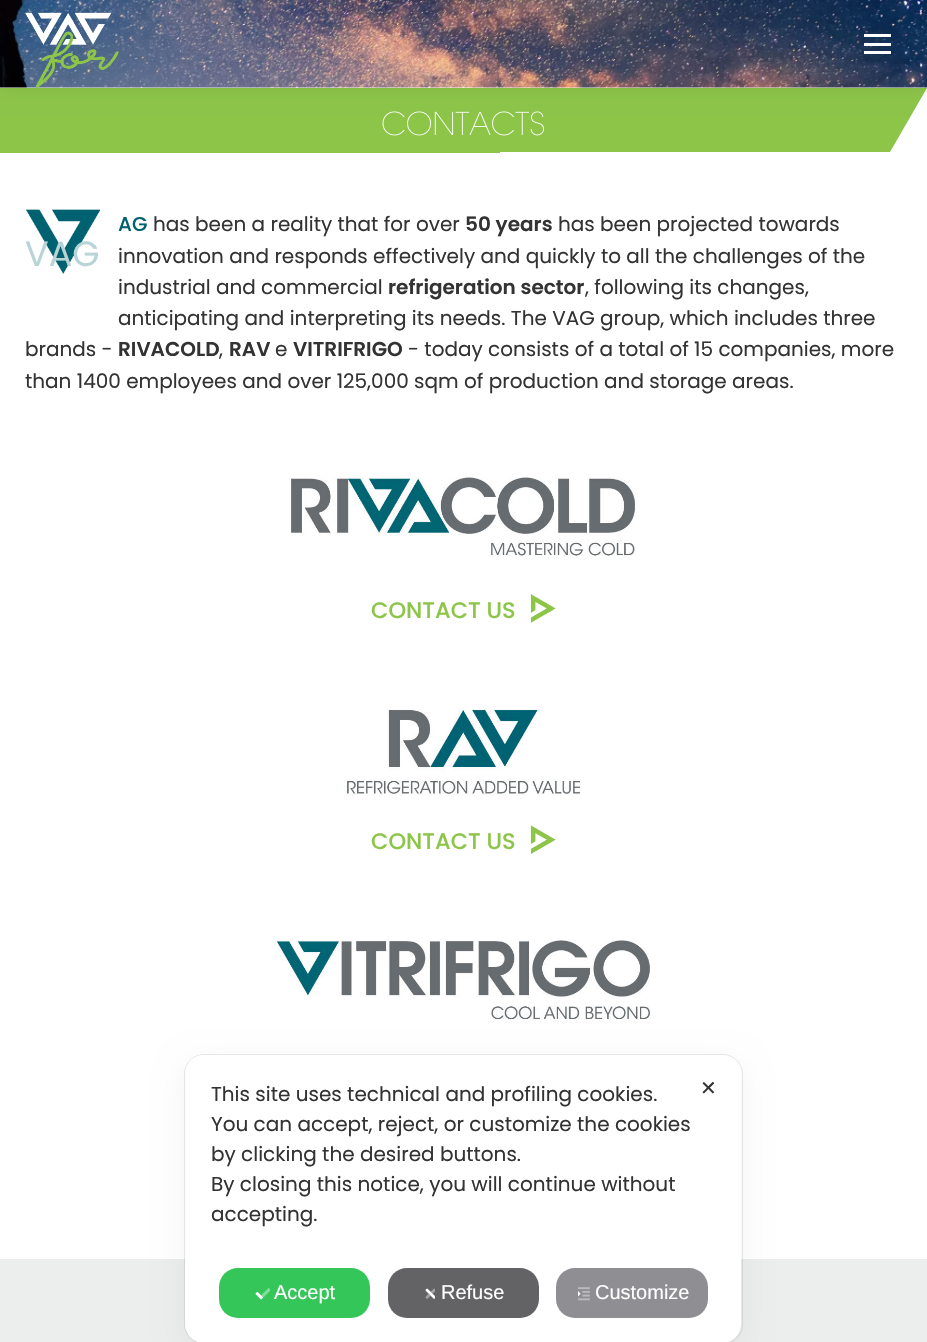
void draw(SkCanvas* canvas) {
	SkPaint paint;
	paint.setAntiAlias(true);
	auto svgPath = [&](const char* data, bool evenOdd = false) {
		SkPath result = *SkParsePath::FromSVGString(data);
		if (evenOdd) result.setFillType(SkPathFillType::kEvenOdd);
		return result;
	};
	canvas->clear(0xffffffff);
	paint.setColor(0xff8dc549);
	canvas->drawPath(svgPath("M0 88V152H890L927 88Z"), paint);
	canvas->drawImageRect(SkImages::DeferredFromEncodedData(SkData::MakeFromFileName("img3.png")), SkRect::MakeXYWH(382, 111, 162, 25), SkSamplingOptions());
	paint.setColor(0x12000000);
	paint.setMaskFilter(SkMaskFilter::MakeBlur(kNormal_SkBlurStyle, 9.5));
	canvas->drawRect(SkRect::MakeXYWH(-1, -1, 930, 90), paint);
	paint.setMaskFilter(nullptr);
	canvas->drawImageRect(SkImages::DeferredFromEncodedData(SkData::MakeFromFileName("img1.png")), SkRect::MakeXYWH(0, 0, 927, 88), SkSamplingOptions());
	canvas->drawImageRect(SkImages::DeferredFromEncodedData(SkData::MakeFromFileName("img2.png")), SkRect::MakeXYWH(25, 12, 94, 76), SkSamplingOptions());
	paint.setColor(0xffffffff);
	canvas->drawRect(SkRect::MakeXYWH(864, 34, 27, 3), paint);
	canvas->drawRect(SkRect::MakeXYWH(864, 43, 27, 3), paint);
	canvas->drawRect(SkRect::MakeXYWH(864, 51, 27, 3), paint);
	paint.setColor(0xff8dc549);
	canvas->drawRect(SkRect::MakeXYWH(0, 152, 500, 1), paint);
	SkFont f1(fontMgr->matchFamilyStyle("Poppins", SkFontStyle(500, SkFontStyle::kNormal_Width, SkFontStyle::kUpright_Slant)), 20);
	f1.setSubpixel(true);
	paint.setColor(0xff006270);
	canvas->drawString("AG", 118, 231, f1, paint);
	SkFont f2(fontMgr->matchFamilyStyle("Poppins", SkFontStyle::Normal()), 20);
	f2.setSubpixel(true);
	paint.setColor(0xff333333);
	canvas->drawString("has been a reality that for over", 153, 231, f2, paint);
	SkFont f3(fontMgr->matchFamilyStyle("Poppins", SkFontStyle(600, SkFontStyle::kNormal_Width, SkFontStyle::kUpright_Slant)), 20);
	f3.setSubpixel(true);
	canvas->drawString("50 years", 465, 231, f3, paint);
	canvas->drawString("has been projected towards", 558, 231, f2, paint);
	canvas->drawImageRect(SkImages::DeferredFromEncodedData(SkData::MakeFromFileName("img4.png")), SkRect::MakeXYWH(26, 209, 74, 65), SkSamplingOptions());
	SkFont f4(fontMgr->matchFamilyStyle("Poppins", SkFontStyle::Normal()), 35);
	f4.setSubpixel(true);
	paint.setColor(0xffb8d4d7);
	canvas->drawString("VAG", 25, 266, f4, paint);
	paint.setColor(0xff333333);
	canvas->drawString("innovation and responds effectively and quickly to all the challenges of the", 118, 263, f2, paint);
	canvas->drawString("industrial and commercial", 118, 294, f2, paint);
	canvas->drawString("refrigeration sector", 388, 294, f3, paint);
	canvas->drawString(", following its changes,", 585, 294, f2, paint);
	canvas->drawString("anticipating and interpreting its needs. The VAG group, which includes three", 118, 325, f2, paint);
	canvas->drawString("brands -", 25, 356, f2, paint);
	canvas->drawString("RIVACOLD", 118, 356, f3, paint);
	canvas->drawString(",", 219, 356, f2, paint);
	canvas->drawString("RAV", 229, 356, f3, paint);
	canvas->drawString("e", 275, 356, f2, paint);
	canvas->drawString("VITRIFRIGO", 293, 356, f3, paint);
	canvas->drawString("- today consists of a total of 15 companies, more", 408, 356, f2, paint);
	canvas->drawString("than 1400 employees and over 125,000 sqm of production and storage areas.", 25, 388, f2, paint);
	canvas->drawImageRect(SkImages::DeferredFromEncodedData(SkData::MakeFromFileName("img5.png")), SkRect::MakeXYWH(289, 477, 348, 79), SkSamplingOptions());
	SkFont f5(fontMgr->matchFamilyStyle("Poppins", SkFontStyle(500, SkFontStyle::kNormal_Width, SkFontStyle::kUpright_Slant)), 22.5);
	f5.setSubpixel(true);
	paint.setColor(0xff8dc549);
	canvas->drawString("CONTACT US", 371, 618, f5, paint);
	canvas->drawImageRect(SkImages::DeferredFromEncodedData(SkData::MakeFromFileName("img6.png")), SkRect::MakeXYWH(530, 594, 26, 29), SkSamplingOptions());
	canvas->drawImageRect(SkImages::DeferredFromEncodedData(SkData::MakeFromFileName("img7.png")), SkRect::MakeXYWH(346, 708, 235, 88), SkSamplingOptions());
	canvas->drawString("CONTACT US", 371, 849, f5, paint);
	canvas->drawImageRect(SkImages::DeferredFromEncodedData(SkData::MakeFromFileName("img8.png")), SkRect::MakeXYWH(530, 825, 26, 29), SkSamplingOptions());
	canvas->drawImageRect(SkImages::DeferredFromEncodedData(SkData::MakeFromFileName("img9.png")), SkRect::MakeXYWH(274, 940, 378, 83), SkSamplingOptions());
	paint.setColor(0xffeceded);
	canvas->drawRect(SkRect::MakeXYWH(0, 1259, 927, 83), paint);
	paint.setStroke(true);
	paint.setStrokeWidth(1);
	paint.setColor(0x14000000);
	canvas->drawRoundRect(SkRect::MakeXYWH(184.5, 1054.5, 558, 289), 19.5, 19.5, paint);
	paint.setStroke(false);
	paint.setColor(0x0d000000);
	paint.setMaskFilter(SkMaskFilter::MakeBlur(kNormal_SkBlurStyle, 15));
	canvas->drawRoundRect(SkRect::MakeXYWH(185, 1063, 556, 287), 19, 19, paint);
	paint.setMaskFilter(nullptr);
	paint.setColor(0xffffffff);
	canvas->drawRoundRect(SkRect::MakeXYWH(185, 1055, 556, 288), 19, 19, paint);
	paint.setColor(0xff333333);
	canvas->drawString("This site uses technical and profiling cookies.", 211, 1101, f2, paint);
	canvas->drawString("You can accept, reject, or customize the cookies", 211, 1131, f2, paint);
	canvas->drawString("by clicking the desired buttons.", 211, 1161, f2, paint);
	canvas->drawString("By closing this notice, you will continue without", 211, 1191, f2, paint);
	canvas->drawString("accepting.", 211, 1221, f2, paint);
	paint.setColor(0xff34c659);
	canvas->drawRoundRect(SkRect::MakeXYWH(219, 1268, 151, 50), 19, 19, paint);
	canvas->drawImageRect(SkImages::DeferredFromEncodedData(SkData::MakeFromFileName("img10.png")), SkRect::MakeXYWH(255, 1288, 15, 12), SkSamplingOptions());
	SkFont f6(fontMgr->matchFamilyStyle("Liberation Sans", SkFontStyle::Normal()), 20);
	f6.setSubpixel(true);
	paint.setColor(0xffffffff);
	canvas->drawString("Accept", 274, 1299, f6, paint);
	paint.setColor(0xff636366);
	canvas->drawRoundRect(SkRect::MakeXYWH(388, 1268, 151, 50), 19, 19, paint);
	canvas->drawImageRect(SkImages::DeferredFromEncodedData(SkData::MakeFromFileName("img11.png")), SkRect::MakeXYWH(425, 1288, 10, 11), SkSamplingOptions());
	paint.setColor(0xffffffff);
	canvas->drawString("Refuse", 441, 1299, f6, paint);
	paint.setColor(0xff8e8e93);
	canvas->drawRoundRect(SkRect::MakeXYWH(556, 1268, 152, 50), 19, 19, paint);
	canvas->drawImageRect(SkImages::DeferredFromEncodedData(SkData::MakeFromFileName("img12.png")), SkRect::MakeXYWH(578, 1287, 12, 14), SkSamplingOptions());
	paint.setColor(0xffffffff);
	canvas->drawString("Customize", 595, 1299, f6, paint);
	SkFont f7(fontMgr->matchFamilyStyle("DejaVu Sans", SkFontStyle::Normal()), 20);
	f7.setSubpixel(true);
	paint.setColor(0xff333333);
	canvas->drawString("✕", 700, 1095, f7, paint);
}
